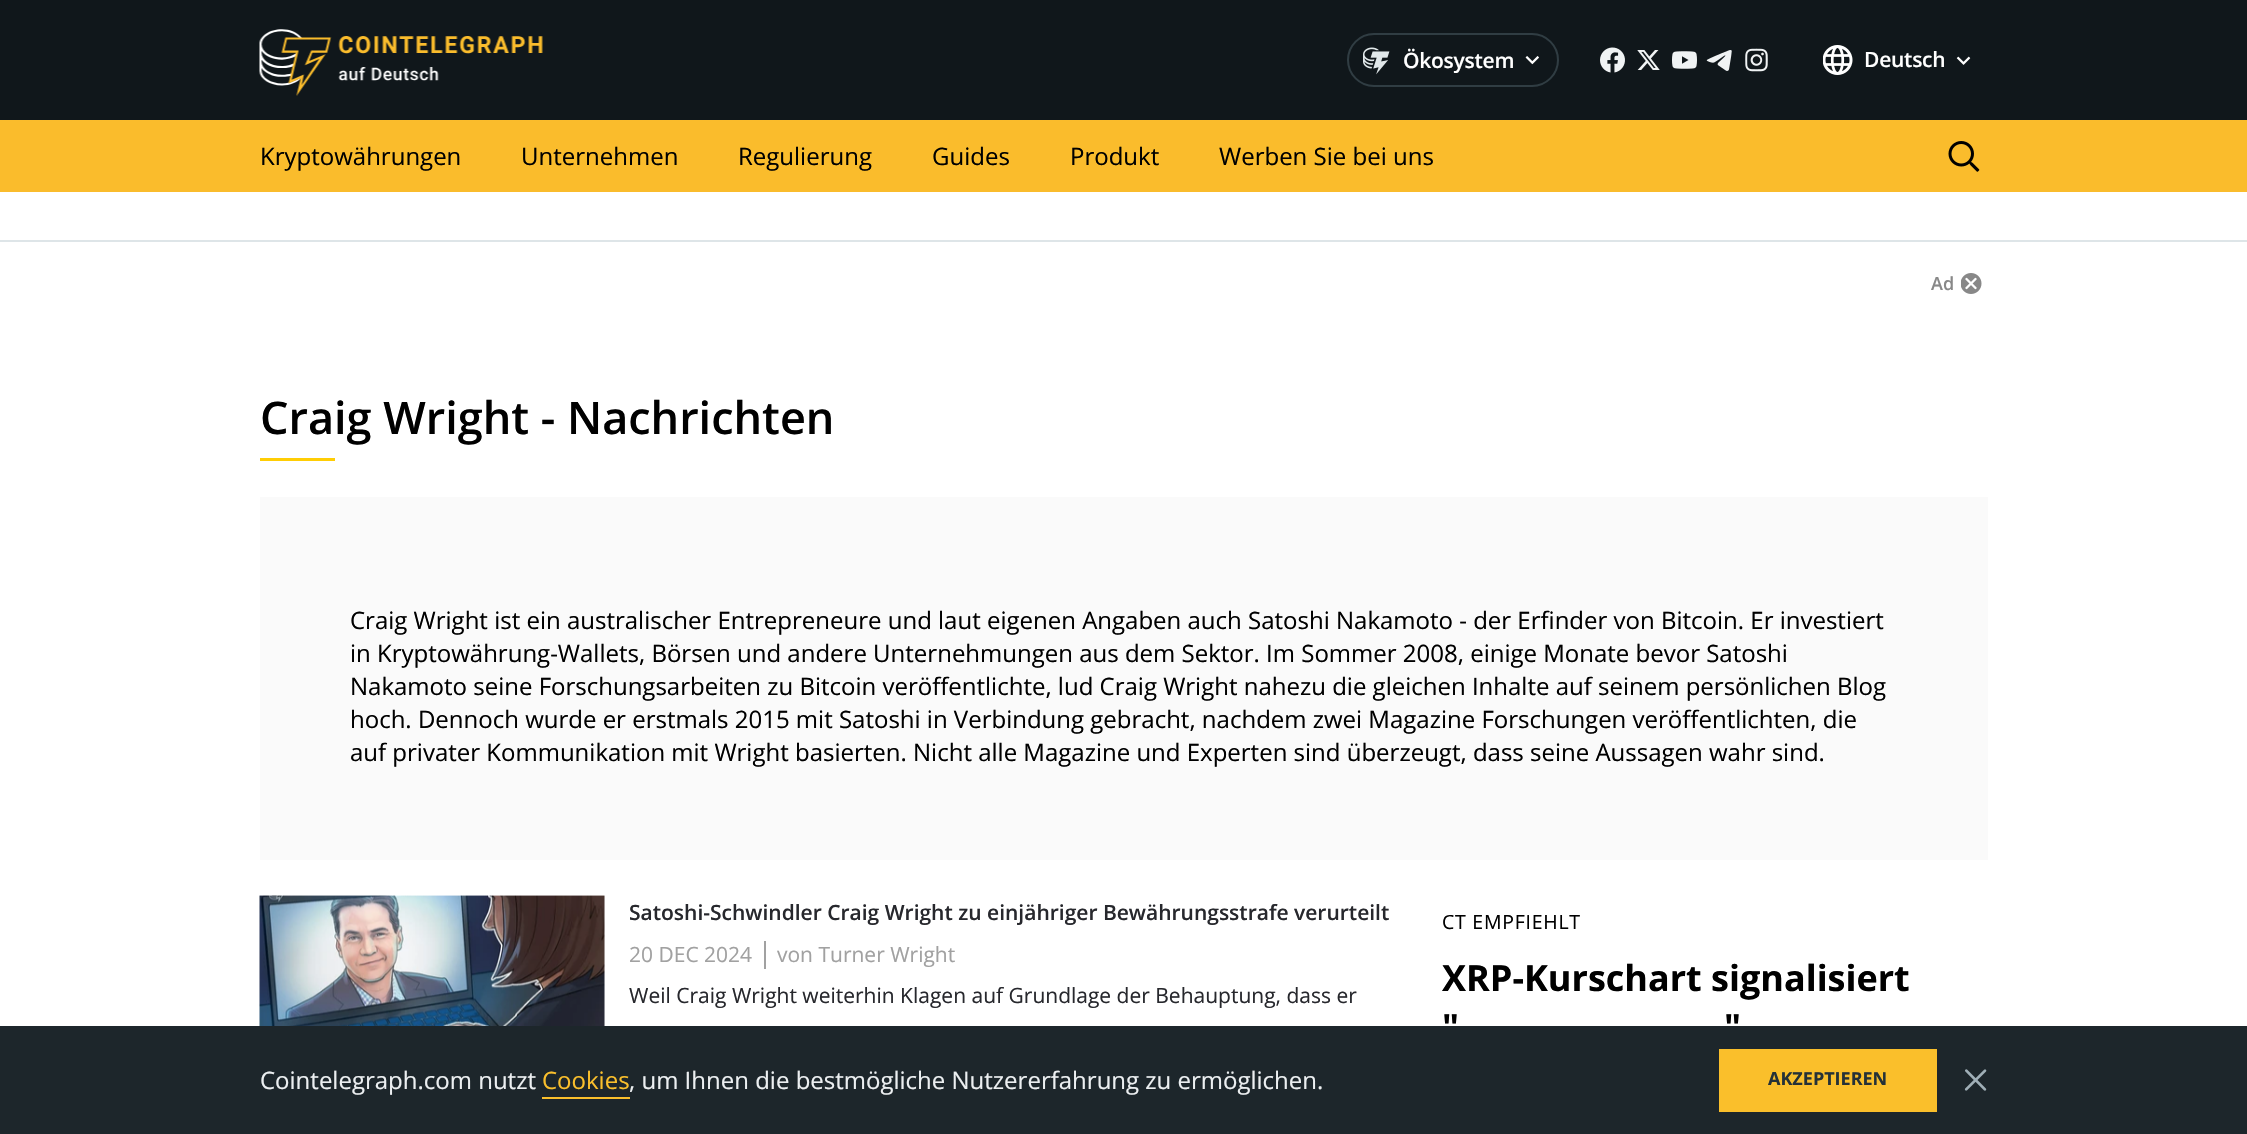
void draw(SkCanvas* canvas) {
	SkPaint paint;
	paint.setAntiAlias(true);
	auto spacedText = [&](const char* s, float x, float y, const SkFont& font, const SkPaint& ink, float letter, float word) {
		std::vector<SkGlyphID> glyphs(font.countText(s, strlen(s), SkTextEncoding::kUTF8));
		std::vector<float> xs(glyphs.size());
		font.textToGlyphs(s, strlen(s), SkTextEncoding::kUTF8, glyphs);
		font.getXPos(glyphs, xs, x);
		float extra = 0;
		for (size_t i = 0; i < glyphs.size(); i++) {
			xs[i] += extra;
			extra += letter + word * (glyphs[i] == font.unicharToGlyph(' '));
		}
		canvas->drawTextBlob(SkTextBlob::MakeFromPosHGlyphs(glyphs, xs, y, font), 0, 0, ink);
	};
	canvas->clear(0xffffffff);
	paint.setColor(0xff10171b);
	canvas->drawRect(SkRect::MakeXYWH(0, 0, 2247, 120), paint);
	canvas->drawImageRect(SkImages::DeferredFromEncodedData(SkData::MakeFromFileName("img1.png")), SkRect::MakeXYWH(259, 29, 284, 67), SkSamplingOptions());
	paint.setStroke(true);
	paint.setStrokeWidth(2);
	paint.setColor(0xff303d43);
	canvas->drawRoundRect(SkRect::MakeXYWH(1348, 34, 210, 52), 26, 26, paint);
	canvas->drawImageRect(SkImages::DeferredFromEncodedData(SkData::MakeFromFileName("img2.png")), SkRect::MakeXYWH(1363, 47, 27, 28), SkSamplingOptions());
	SkFont f1(fontMgr->matchFamilyStyle("Open Sans", SkFontStyle(600, SkFontStyle::kNormal_Width, SkFontStyle::kUpright_Slant)), 21);
	f1.setSubpixel(true);
	paint.setStroke(false);
	paint.setColor(0xffffffff);
	spacedText("Ökosystem", 1403, 68, f1, paint, -0.25, 0);
	canvas->drawImageRect(SkImages::DeferredFromEncodedData(SkData::MakeFromFileName("img3.png")), SkRect::MakeXYWH(1525, 56, 14, 9), SkSamplingOptions());
	canvas->drawImageRect(SkImages::DeferredFromEncodedData(SkData::MakeFromFileName("img4.png")), SkRect::MakeXYWH(1600, 47, 25, 26), SkSamplingOptions());
	canvas->drawImageRect(SkImages::DeferredFromEncodedData(SkData::MakeFromFileName("img5.png")), SkRect::MakeXYWH(1637, 50, 23, 20), SkSamplingOptions());
	canvas->drawImageRect(SkImages::DeferredFromEncodedData(SkData::MakeFromFileName("img6.png")), SkRect::MakeXYWH(1672, 51, 25, 18), SkSamplingOptions());
	canvas->drawImageRect(SkImages::DeferredFromEncodedData(SkData::MakeFromFileName("img7.png")), SkRect::MakeXYWH(1706, 50, 26, 21), SkSamplingOptions());
	canvas->drawImageRect(SkImages::DeferredFromEncodedData(SkData::MakeFromFileName("img8.png")), SkRect::MakeXYWH(1745, 48, 23, 24), SkSamplingOptions());
	canvas->drawImageRect(SkImages::DeferredFromEncodedData(SkData::MakeFromFileName("img9.png")), SkRect::MakeXYWH(1823, 45, 30, 30), SkSamplingOptions());
	spacedText("Deutsch", 1864, 67, f1, paint, -0.25, 0);
	canvas->drawImageRect(SkImages::DeferredFromEncodedData(SkData::MakeFromFileName("img10.png")), SkRect::MakeXYWH(1956, 56, 15, 9), SkSamplingOptions());
	paint.setColor(0xfffabc2c);
	canvas->drawRect(SkRect::MakeXYWH(0, 120, 2247, 72), paint);
	SkFont f2(fontMgr->matchFamilyStyle("Open Sans", SkFontStyle::Normal()), 24);
	f2.setSubpixel(true);
	paint.setColor(0xff000000);
	canvas->drawString("Kryptowährungen", 260, 165, f2, paint);
	canvas->drawString("Unternehmen", 521, 165, f2, paint);
	canvas->drawString("Regulierung", 738, 165, f2, paint);
	canvas->drawString("Guides", 932, 165, f2, paint);
	canvas->drawString("Produkt", 1070, 165, f2, paint);
	canvas->drawString("Werben Sie bei uns", 1219, 165, f2, paint);
	canvas->drawImageRect(SkImages::DeferredFromEncodedData(SkData::MakeFromFileName("img11.png")), SkRect::MakeXYWH(1948, 141, 32, 31), SkSamplingOptions());
	paint.setColor(0xffdee5e8);
	canvas->drawRect(SkRect::MakeXYWH(0, 240, 2247, 2), paint);
	SkFont f3(fontMgr->matchFamilyStyle("Open Sans", SkFontStyle(600, SkFontStyle::kNormal_Width, SkFontStyle::kUpright_Slant)), 18);
	f3.setSubpixel(true);
	paint.setColor(0xff888888);
	canvas->drawString("Ad", 1931, 290, f3, paint);
	canvas->drawImageRect(SkImages::DeferredFromEncodedData(SkData::MakeFromFileName("img12.png")), SkRect::MakeXYWH(1961, 273, 21, 21), SkSamplingOptions());
	SkFont f4(fontMgr->matchFamilyStyle("Open Sans", SkFontStyle(600, SkFontStyle::kNormal_Width, SkFontStyle::kUpright_Slant)), 45);
	f4.setSubpixel(true);
	paint.setColor(0xff000000);
	canvas->drawString("Craig Wright - Nachrichten", 260, 434, f4, paint);
	paint.setColor(0xffffcd04);
	canvas->drawRect(SkRect::MakeXYWH(260, 458, 75, 3), paint);
	paint.setColor(0xfffafafa);
	canvas->drawRect(SkRect::MakeXYWH(260, 497, 1728, 363), paint);
	paint.setColor(0xff000000);
	canvas->drawString("Craig Wright ist ein australischer Entrepreneure und laut eigenen Angaben auch Satoshi Nakamoto - der Erfinder von Bitcoin. Er investiert", 350, 629, f2, paint);
	canvas->drawString("in Kryptowährung-Wallets, Börsen und andere Unternehmungen aus dem Sektor. Im Sommer 2008, einige Monate bevor Satoshi", 350, 662, f2, paint);
	canvas->drawString("Nakamoto seine Forschungsarbeiten zu Bitcoin veröffentlichte, lud Craig Wright nahezu die gleichen Inhalte auf seinem persönlichen Blog", 350, 695, f2, paint);
	canvas->drawString("hoch. Dennoch wurde er erstmals 2015 mit Satoshi in Verbindung gebracht, nachdem zwei Magazine Forschungen veröffentlichten, die", 350, 728, f2, paint);
	canvas->drawString("auf privater Kommunikation mit Wright basierten. Nicht alle Magazine und Experten sind überzeugt, dass seine Aussagen wahr sind.", 350, 761, f2, paint);
	paint.setColor(0xfff6f7f8);
	canvas->drawRect(SkRect::MakeXYWH(604, 896, 1, 130), paint);
	canvas->drawImageRect(SkImages::DeferredFromEncodedData(SkData::MakeFromFileName("img13.png")), SkRect::MakeXYWH(259, 895, 346, 131), SkSamplingOptions());
	paint.setColor(0xff27282d);
	canvas->drawString("Satoshi-Schwindler Craig Wright zu einjähriger Bewährungsstrafe verurteilt", 629, 920, f1, paint);
	SkFont f5(fontMgr->matchFamilyStyle("Open Sans", SkFontStyle::Normal()), 21);
	f5.setSubpixel(true);
	paint.setColor(0xffa1a1a1);
	canvas->drawString("20 DEC 2024", 629, 962, f5, paint);
	canvas->drawRect(SkRect::MakeXYWH(764, 941, 2, 28), paint);
	canvas->drawString("von Turner Wright", 777, 962, f5, paint);
	paint.setColor(0xff27282d);
	canvas->drawString("Weil Craig Wright weiterhin Klagen auf Grundlage der Behauptung, dass er", 629, 1003, f5, paint);
	SkFont f6(fontMgr->matchFamilyStyle("Open Sans", SkFontStyle::Normal()), 19.5);
	f6.setSubpixel(true);
	paint.setColor(0xff000000);
	spacedText("CT EMPFIEHLT", 1442, 929, f6, paint, 0.75, 0);
	SkFont f7(fontMgr->matchFamilyStyle("Open Sans", SkFontStyle::Bold()), 36);
	f7.setSubpixel(true);
	canvas->drawString("XRP-Kurschart signalisiert", 1442, 991, f7, paint);
	canvas->drawString("\"", 1442, 1040, f7, paint);
	canvas->drawString("\"", 1724, 1040, f7, paint);
	paint.setColor(0xff1d262b);
	canvas->drawRect(SkRect::MakeXYWH(0, 1026, 2247, 108), paint);
	paint.setColor(0xffeceff1);
	canvas->drawString("Cointelegraph.com nutzt", 260, 1089, f2, paint);
	paint.setColor(0xfffabf2c);
	canvas->drawString("Cookies", 542, 1089, f2, paint);
	canvas->drawRect(SkRect::MakeXYWH(542, 1097, 88, 2), paint);
	paint.setColor(0xffeceff1);
	canvas->drawString(", um Ihnen die bestmögliche Nutzererfahrung zu ermöglichen.", 629, 1089, f2, paint);
	paint.setColor(0xfffabf2b);
	canvas->drawRect(SkRect::MakeXYWH(1719, 1049, 218, 63), paint);
	SkFont f8(fontMgr->matchFamilyStyle("Open Sans", SkFontStyle::Bold()), 18);
	f8.setSubpixel(true);
	paint.setColor(0xff253137);
	canvas->drawString("AKZEPTIEREN", 1768, 1085, f8, paint);
	canvas->drawImageRect(SkImages::DeferredFromEncodedData(SkData::MakeFromFileName("img14.png")), SkRect::MakeXYWH(1964, 1069, 23, 22), SkSamplingOptions());
}
